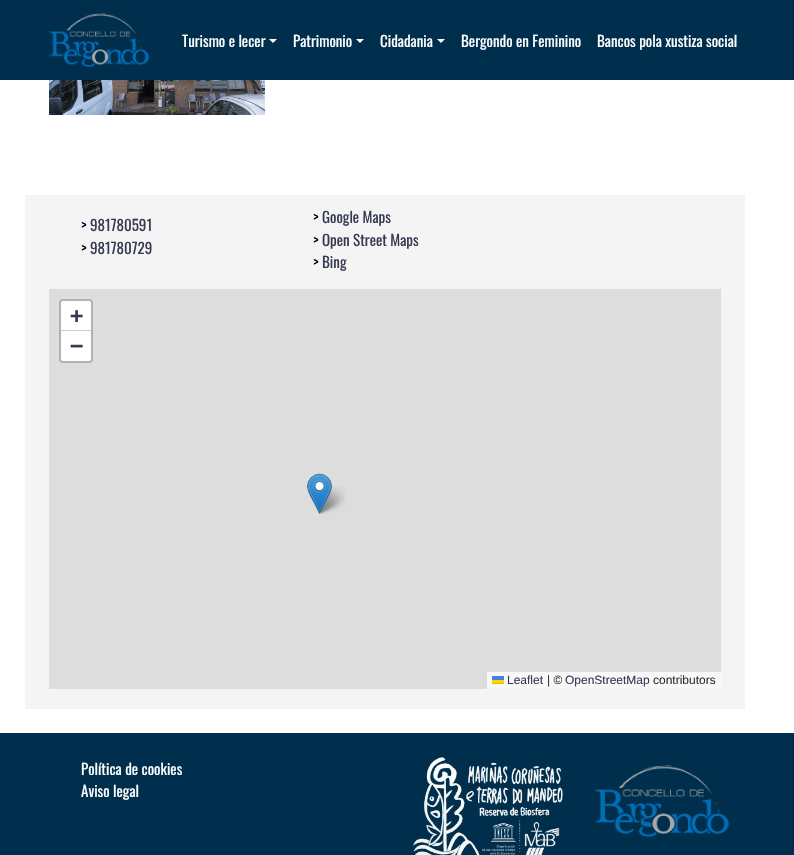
void draw(SkCanvas* canvas) {
	SkPaint paint;
	paint.setAntiAlias(true);
	auto svgPath = [&](const char* data, bool evenOdd = false) {
		SkPath result = *SkParsePath::FromSVGString(data);
		if (evenOdd) result.setFillType(SkPathFillType::kEvenOdd);
		return result;
	};
	canvas->clear(0xffffffff);
	paint.setColor(0xff002f4e);
	canvas->drawRect(SkRect::MakeXYWH(0, 0, 794, 80), paint);
	canvas->drawImageRect(SkImages::DeferredFromEncodedData(SkData::MakeFromFileName("img1.png")), SkRect::MakeXYWH(49, 13, 100, 54), SkSamplingOptions());
	SkFont f1(fontMgr->matchFamilyStyle("Oswald", SkFontStyle::Normal()), 15);
	f1.setSubpixel(true);
	paint.setColor(0xffffffff);
	canvas->drawString("Turismo e lecer", 182, 47, f1, paint);
	canvas->drawPath(svgPath("M269 39H277L273 43Z"), paint);
	canvas->drawString("Patrimonio", 293, 47, f1, paint);
	canvas->drawPath(svgPath("M356 39H364L360 43Z"), paint);
	canvas->drawString("Cidadania", 380, 47, f1, paint);
	canvas->drawPath(svgPath("M437 39H445L441 43Z"), paint);
	canvas->drawString("Bergondo en Feminino", 461, 47, f1, paint);
	canvas->drawString("Bancos pola xustiza social", 597, 47, f1, paint);
	canvas->drawImageRect(SkImages::DeferredFromEncodedData(SkData::MakeFromFileName("img2.png")), SkRect::MakeXYWH(49, 80, 216, 35), SkSamplingOptions());
	paint.setColor(0xfff4f4f4);
	canvas->drawRect(SkRect::MakeXYWH(25, 195, 720, 514), paint);
	paint.setColor(0xff000220);
	canvas->drawString(">", 81, 231, f1, paint);
	paint.setColor(0xff363952);
	canvas->drawString("981780591", 90, 231, f1, paint);
	paint.setColor(0xff000220);
	canvas->drawString(">", 81, 254, f1, paint);
	paint.setColor(0xff363952);
	canvas->drawString("981780729", 90, 254, f1, paint);
	paint.setColor(0xff000220);
	canvas->drawString(">", 313, 223, f1, paint);
	paint.setColor(0xff363952);
	canvas->drawString("Google Maps", 322, 223, f1, paint);
	paint.setColor(0xff000220);
	canvas->drawString(">", 313, 246, f1, paint);
	paint.setColor(0xff363952);
	canvas->drawString("Open Street Maps", 322, 246, f1, paint);
	paint.setColor(0xff000220);
	canvas->drawString(">", 313, 268, f1, paint);
	paint.setColor(0xff363952);
	canvas->drawString("Bing", 322, 268, f1, paint);
	paint.setColor(0xffdddddd);
	canvas->drawRect(SkRect::MakeXYWH(49, 289, 672, 400), paint);
	paint.setStroke(true);
	paint.setStrokeWidth(2);
	paint.setColor(0xffb1b1b1);
	canvas->drawRoundRect(SkRect::MakeXYWH(60, 300, 32, 62), 3, 3, paint);
	paint.setStroke(false);
	paint.setColor(0xffffffff);
	canvas->drawPath(svgPath("M63 301H89C90 301 91 302 91 303V331H61V303C61 302 62 301 63 301Z"), paint);
	paint.setColor(0xffcccccc);
	canvas->drawRect(SkRect::MakeXYWH(61, 330, 30, 1), paint);
	SkFont f2(fontMgr->matchFamilyStyle("DejaVu Sans Mono", SkFontStyle::Bold()), 22);
	f2.setSubpixel(true);
	paint.setColor(0xff363952);
	canvas->drawString("+", 70, 323, f2, paint);
	paint.setColor(0xffffffff);
	canvas->drawPath(svgPath("M61 331H91V359C91 360 90 361 89 361H63C62 361 61 360 61 359Z"), paint);
	paint.setColor(0xff363952);
	canvas->drawString("−", 70, 353, f2, paint);
	paint.setColor(0xfff8f8f8);
	canvas->drawRect(SkRect::MakeXYWH(487, 672, 234, 17), paint);
	SkFont f3(fontMgr->matchFamilyStyle("Liberation Sans", SkFontStyle::Normal()), 12);
	f3.setSubpixel(true);
	paint.setColor(0xff363952);
	canvas->drawString("Leaflet", 507, 684, f3, paint);
	paint.setColor(0xff4c7be1);
	canvas->drawRect(SkRect::MakeXYWH(492, 676, 12, 4), paint);
	paint.setColor(0xffffd500);
	canvas->drawRect(SkRect::MakeXYWH(492, 680, 12, 3), paint);
	paint.setColor(0xffe0bc00);
	canvas->drawRect(SkRect::MakeXYWH(492, 683, 12, 1), paint);
	paint.setColor(0xff333333);
	canvas->drawString("| ©", 547, 684, f3, paint);
	paint.setColor(0xff363952);
	canvas->drawString("OpenStreetMap", 565, 684, f3, paint);
	paint.setColor(0xff333333);
	canvas->drawString("contributors", 653, 684, f3, paint);
	canvas->drawImageRect(SkImages::DeferredFromEncodedData(SkData::MakeFromFileName("img4.png")), SkRect::MakeXYWH(317, 486, 29, 28), SkSamplingOptions());
	canvas->drawImageRect(SkImages::DeferredFromEncodedData(SkData::MakeFromFileName("img3.png")), SkRect::MakeXYWH(307, 473, 25, 41), SkSamplingOptions());
	paint.setColor(0xff002f4e);
	canvas->drawRect(SkRect::MakeXYWH(0, 733, 794, 122), paint);
	paint.setColor(0xffffffff);
	canvas->drawString("Política de cookies", 81, 775, f1, paint);
	canvas->drawString("Aviso legal", 81, 797, f1, paint);
	canvas->drawImageRect(SkImages::DeferredFromEncodedData(SkData::MakeFromFileName("img5.png")), SkRect::MakeXYWH(413, 757, 150, 98), SkSamplingOptions());
	canvas->drawImageRect(SkImages::DeferredFromEncodedData(SkData::MakeFromFileName("img6.png")), SkRect::MakeXYWH(595, 765, 134, 72), SkSamplingOptions());
}
